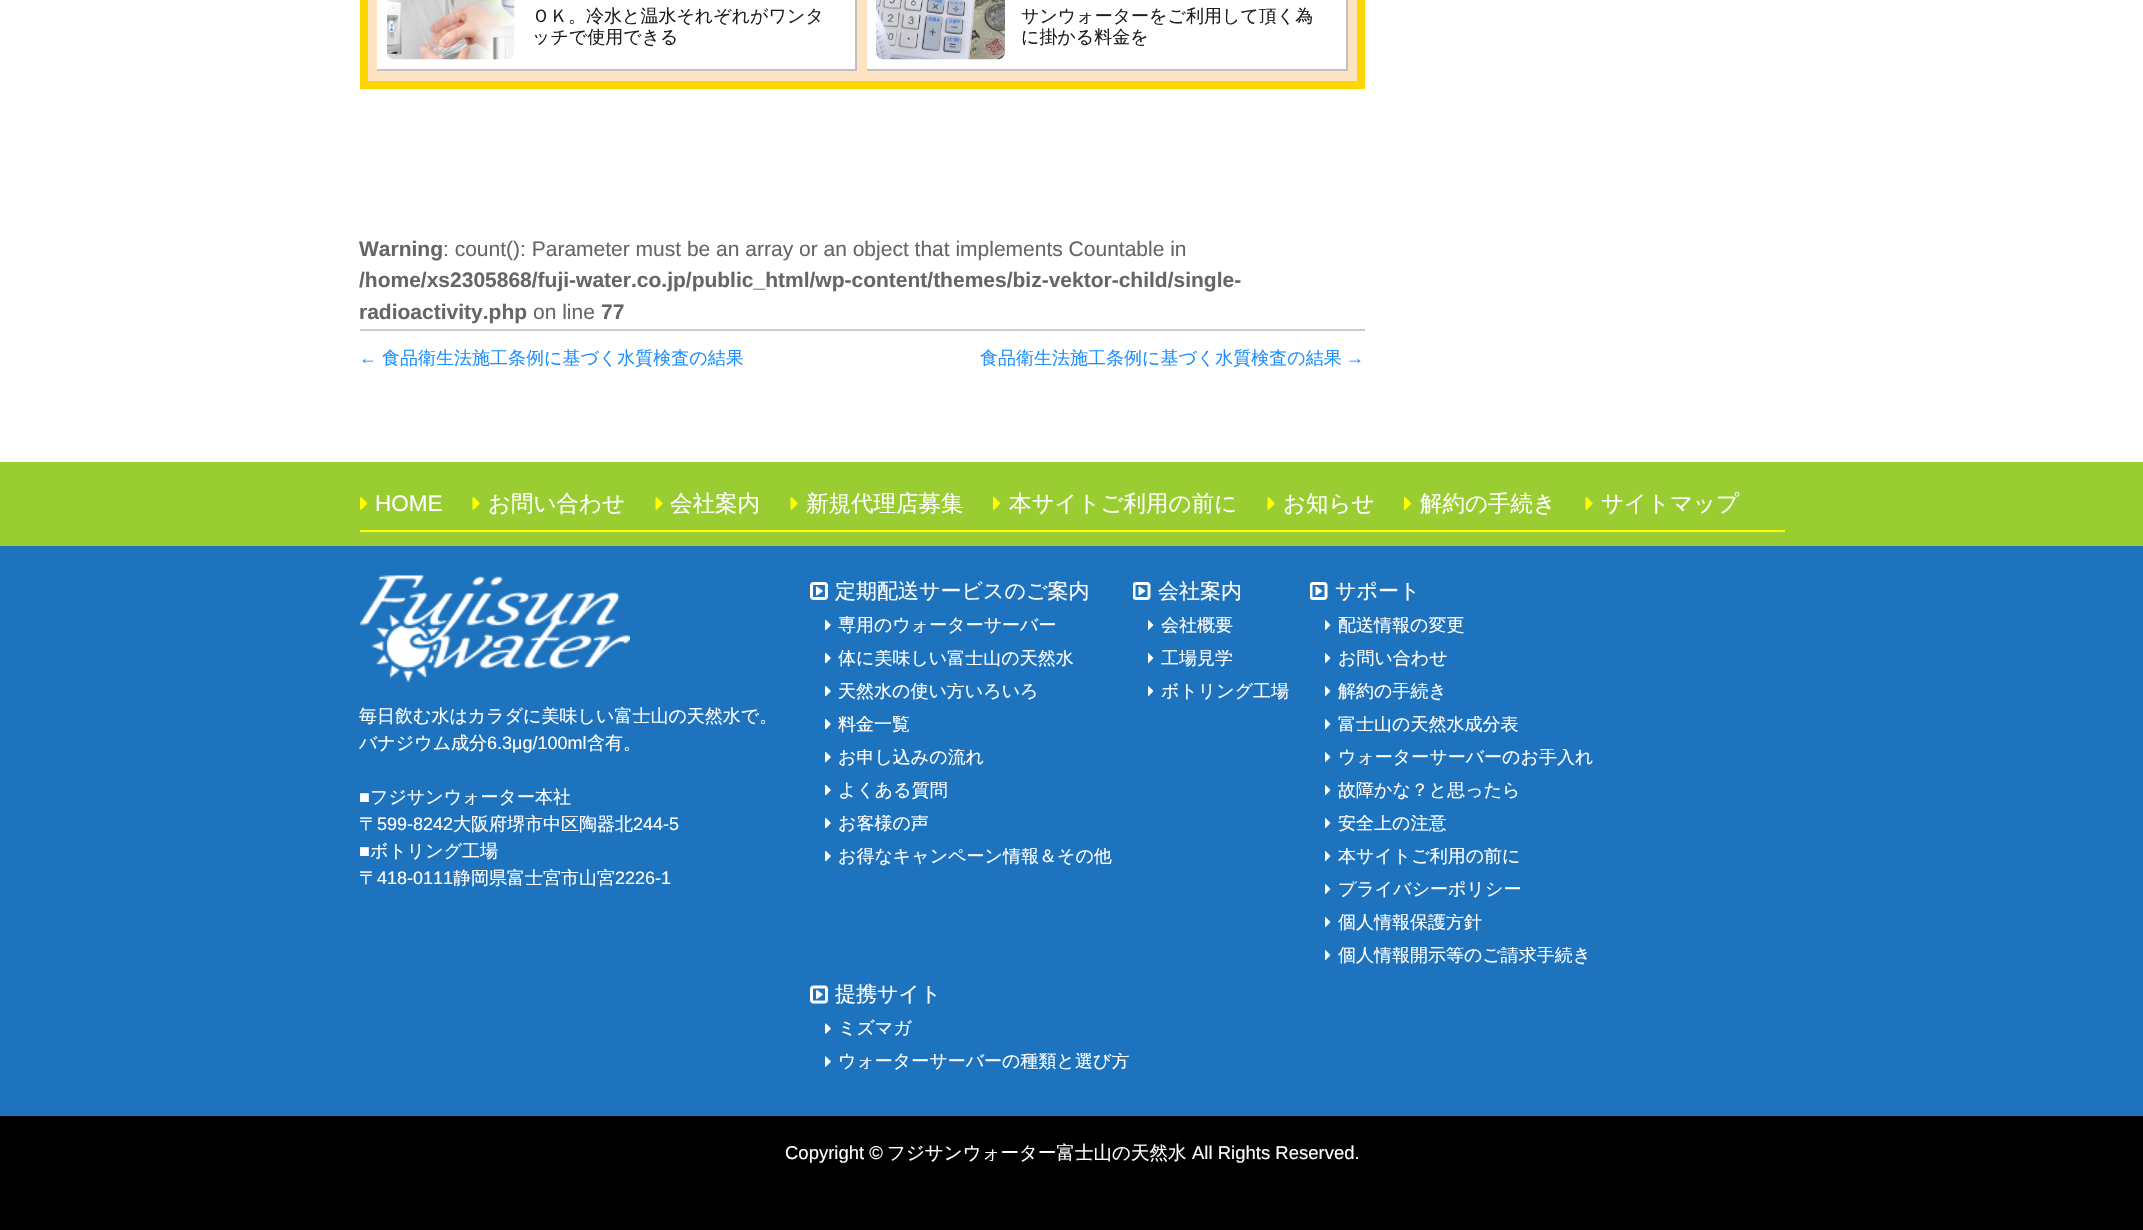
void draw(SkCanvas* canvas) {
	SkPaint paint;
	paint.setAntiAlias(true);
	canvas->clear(0xffffffff);
	paint.setColor(0xffffe4c4);
	canvas->drawRect(SkRect::MakeXYWH(364, -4, 997, 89), paint);
	paint.setStroke(true);
	paint.setStrokeWidth(8);
	paint.setColor(0xffffd700);
	canvas->drawRect(SkRect::MakeXYWH(364, -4, 997, 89), paint);
	paint.setStroke(false);
	paint.setColor(0xffffffff);
	canvas->drawRect(SkRect::MakeXYWH(377, 0, 478, 69), paint);
	paint.setColor(0xffc0c0c0);
	canvas->drawRect(SkRect::MakeXYWH(855, 0, 2, 71), paint);
	canvas->drawRect(SkRect::MakeXYWH(377, 69, 480, 2), paint);
	canvas->drawImageRect(SkImages::DeferredFromEncodedData(SkData::MakeFromFileName("img1.png")), SkRect::MakeXYWH(387, 0, 128, 60), SkSamplingOptions());
	SkFont f1(fontMgr->matchFamilyStyle("WenQuanYi Zen Hei", SkFontStyle(500, SkFontStyle::kNormal_Width, SkFontStyle::kUpright_Slant)), 18);
	f1.setSubpixel(true);
	paint.setColor(0xff1e1e1e);
	canvas->drawString("ＯＫ。冷水と温水それぞれがワンタ", 532, 22, f1, paint);
	canvas->drawString("ッチで使用できる", 532, 43, f1, paint);
	paint.setColor(0xffffffff);
	canvas->drawRect(SkRect::MakeXYWH(867, 0, 479, 69), paint);
	paint.setColor(0xffc0c0c0);
	canvas->drawRect(SkRect::MakeXYWH(1346, 0, 2, 71), paint);
	canvas->drawRect(SkRect::MakeXYWH(867, 69, 480, 2), paint);
	canvas->drawImageRect(SkImages::DeferredFromEncodedData(SkData::MakeFromFileName("img2.png")), SkRect::MakeXYWH(876, 0, 129, 60), SkSamplingOptions());
	paint.setColor(0xff1e1e1e);
	canvas->drawString("サンウォーターをご利用して頂く為", 1021, 22, f1, paint);
	canvas->drawString("に掛かる料金を", 1021, 43, f1, paint);
	SkFont f2(fontMgr->matchFamilyStyle("Liberation Sans", SkFontStyle::Bold()), 21);
	f2.setSubpixel(true);
	paint.setColor(0xff666666);
	canvas->drawString("Warning", 359, 256, f2, paint);
	SkFont f3(fontMgr->matchFamilyStyle("Liberation Sans", SkFontStyle::Normal()), 21);
	f3.setSubpixel(true);
	canvas->drawString(": count(): Parameter must be an array or an object that implements Countable in", 443, 256, f3, paint);
	canvas->drawString("/home/xs2305868/fuji-water.co.jp/public_html/wp-content/themes/biz-vektor-child/single-", 359, 287, f2, paint);
	canvas->drawString("radioactivity.php", 359, 319, f2, paint);
	canvas->drawString("on line", 533, 319, f3, paint);
	canvas->drawString("77", 601, 319, f2, paint);
	paint.setColor(0xffcccccc);
	canvas->drawRect(SkRect::MakeXYWH(360, 329, 1005, 2), paint);
	SkFont f4(fontMgr->matchFamilyStyle("Liberation Sans", SkFontStyle::Normal()), 18);
	f4.setSubpixel(true);
	paint.setColor(0xff1e90ff);
	canvas->drawString("←", 359, 364, f4, paint);
	canvas->drawString("食品衛生法施工条例に基づく水質検査の結果", 382, 364, f1, paint);
	canvas->drawString("食品衛生法施工条例に基づく水質検査の結果", 980, 364, f1, paint);
	canvas->drawString("→", 1346, 364, f4, paint);
	paint.setColor(0xff9acd32);
	canvas->drawRect(SkRect::MakeXYWH(0, 462, 2143, 84), paint);
	paint.setColor(0xffffff00);
	canvas->drawRect(SkRect::MakeXYWH(360, 530, 1425, 2), paint);
	canvas->drawImageRect(SkImages::DeferredFromEncodedData(SkData::MakeFromFileName("img3.png")), SkRect::MakeXYWH(360, 497, 8, 13), SkSamplingOptions());
	SkFont f5(fontMgr->matchFamilyStyle("Liberation Sans", SkFontStyle::Normal()), 22.5);
	f5.setSubpixel(true);
	paint.setColor(0xffffffff);
	canvas->drawString("HOME", 375, 511, f5, paint);
	canvas->drawImageRect(SkImages::DeferredFromEncodedData(SkData::MakeFromFileName("img4.png")), SkRect::MakeXYWH(472, 497, 8, 13), SkSamplingOptions());
	SkFont f6(fontMgr->matchFamilyStyle("WenQuanYi Zen Hei", SkFontStyle(500, SkFontStyle::kNormal_Width, SkFontStyle::kUpright_Slant)), 22.5);
	f6.setSubpixel(true);
	canvas->drawString("お問い合わせ", 488, 511, f6, paint);
	canvas->drawImageRect(SkImages::DeferredFromEncodedData(SkData::MakeFromFileName("img4.png")), SkRect::MakeXYWH(655, 497, 8, 13), SkSamplingOptions());
	canvas->drawString("会社案内", 670, 511, f6, paint);
	canvas->drawImageRect(SkImages::DeferredFromEncodedData(SkData::MakeFromFileName("img4.png")), SkRect::MakeXYWH(790, 497, 8, 13), SkSamplingOptions());
	canvas->drawString("新規代理店募集", 806, 511, f6, paint);
	canvas->drawImageRect(SkImages::DeferredFromEncodedData(SkData::MakeFromFileName("img3.png")), SkRect::MakeXYWH(993, 497, 8, 13), SkSamplingOptions());
	canvas->drawString("本サイトご利用の前に", 1009, 511, f6, paint);
	canvas->drawImageRect(SkImages::DeferredFromEncodedData(SkData::MakeFromFileName("img4.png")), SkRect::MakeXYWH(1267, 497, 8, 13), SkSamplingOptions());
	canvas->drawString("お知らせ", 1283, 511, f6, paint);
	canvas->drawImageRect(SkImages::DeferredFromEncodedData(SkData::MakeFromFileName("img3.png")), SkRect::MakeXYWH(1404, 497, 8, 13), SkSamplingOptions());
	canvas->drawString("解約の手続き", 1420, 511, f6, paint);
	canvas->drawImageRect(SkImages::DeferredFromEncodedData(SkData::MakeFromFileName("img4.png")), SkRect::MakeXYWH(1585, 497, 8, 13), SkSamplingOptions());
	canvas->drawString("サイトマップ", 1601, 511, f6, paint);
	paint.setColor(0xff1e73be);
	canvas->drawRect(SkRect::MakeXYWH(0, 546, 2143, 570), paint);
	canvas->drawImageRect(SkImages::DeferredFromEncodedData(SkData::MakeFromFileName("img5.png")), SkRect::MakeXYWH(360, 575, 270, 108), SkSamplingOptions());
	paint.setColor(0xffffffff);
	canvas->drawString("毎日飲む水はカラダに美味しい富士山の天然水で。", 359, 722, f1, paint);
	canvas->drawString("バナジウム成分", 359, 749, f1, paint);
	canvas->drawString("6.3μg/100ml", 487, 749, f4, paint);
	canvas->drawString("含有。", 587, 749, f1, paint);
	canvas->drawString("■", 359, 803, f4, paint);
	canvas->drawString("フジサンウォーター本社", 370, 803, f1, paint);
	canvas->drawString("〒", 359, 830, f1, paint);
	canvas->drawString("599-8242", 377, 830, f4, paint);
	canvas->drawString("大阪府堺市中区陶器北", 453, 830, f1, paint);
	canvas->drawString("244-5", 633, 830, f4, paint);
	canvas->drawString("■", 359, 857, f4, paint);
	canvas->drawString("ボトリング工場", 370, 857, f1, paint);
	canvas->drawString("〒", 359, 884, f1, paint);
	canvas->drawString("418-0111", 377, 884, f4, paint);
	canvas->drawString("静岡県富士宮市山宮", 453, 884, f1, paint);
	canvas->drawString("2226-1", 615, 884, f4, paint);
	canvas->drawImageRect(SkImages::DeferredFromEncodedData(SkData::MakeFromFileName("img6.png")), SkRect::MakeXYWH(810, 582, 18, 18), SkSamplingOptions());
	canvas->save();
	canvas->clipRect(SkRect::MakeXYWH(810, 581, 302, 21));
	SkFont f7(fontMgr->matchFamilyStyle("WenQuanYi Zen Hei", SkFontStyle(500, SkFontStyle::kNormal_Width, SkFontStyle::kUpright_Slant)), 21);
	f7.setSubpixel(true);
	canvas->drawString("定期配送サービスのご案内", 835, 598, f7, paint);
	canvas->restore();
	canvas->drawImageRect(SkImages::DeferredFromEncodedData(SkData::MakeFromFileName("img7.png")), SkRect::MakeXYWH(825, 620, 6, 11), SkSamplingOptions());
	canvas->drawString("専用のウォーターサーバー", 838, 631, f1, paint);
	canvas->drawImageRect(SkImages::DeferredFromEncodedData(SkData::MakeFromFileName("img7.png")), SkRect::MakeXYWH(825, 653, 6, 11), SkSamplingOptions());
	canvas->save();
	canvas->clipRect(SkRect::MakeXYWH(825, 650, 287, 18));
	canvas->drawString("体に美味しい富士山の天然水", 838, 664, f1, paint);
	canvas->restore();
	canvas->drawImageRect(SkImages::DeferredFromEncodedData(SkData::MakeFromFileName("img7.png")), SkRect::MakeXYWH(825, 686, 6, 11), SkSamplingOptions());
	canvas->save();
	canvas->clipRect(SkRect::MakeXYWH(825, 683, 287, 18));
	canvas->drawString("天然水の使い方いろいろ", 838, 697, f1, paint);
	canvas->restore();
	canvas->drawImageRect(SkImages::DeferredFromEncodedData(SkData::MakeFromFileName("img7.png")), SkRect::MakeXYWH(825, 719, 6, 11), SkSamplingOptions());
	canvas->save();
	canvas->clipRect(SkRect::MakeXYWH(825, 716, 287, 18));
	canvas->drawString("料金一覧", 838, 730, f1, paint);
	canvas->restore();
	canvas->drawImageRect(SkImages::DeferredFromEncodedData(SkData::MakeFromFileName("img7.png")), SkRect::MakeXYWH(825, 752, 6, 11), SkSamplingOptions());
	canvas->save();
	canvas->clipRect(SkRect::MakeXYWH(825, 749, 287, 18));
	canvas->drawString("お申し込みの流れ", 838, 763, f1, paint);
	canvas->restore();
	canvas->drawImageRect(SkImages::DeferredFromEncodedData(SkData::MakeFromFileName("img7.png")), SkRect::MakeXYWH(825, 785, 6, 11), SkSamplingOptions());
	canvas->save();
	canvas->clipRect(SkRect::MakeXYWH(825, 782, 287, 18));
	canvas->drawString("よくある質問", 838, 796, f1, paint);
	canvas->restore();
	canvas->drawImageRect(SkImages::DeferredFromEncodedData(SkData::MakeFromFileName("img7.png")), SkRect::MakeXYWH(825, 818, 6, 11), SkSamplingOptions());
	canvas->save();
	canvas->clipRect(SkRect::MakeXYWH(825, 815, 287, 18));
	canvas->drawString("お客様の声", 838, 829, f1, paint);
	canvas->restore();
	canvas->drawImageRect(SkImages::DeferredFromEncodedData(SkData::MakeFromFileName("img7.png")), SkRect::MakeXYWH(825, 851, 6, 11), SkSamplingOptions());
	canvas->save();
	canvas->clipRect(SkRect::MakeXYWH(825, 848, 287, 18));
	canvas->drawString("お得なキャンペーン情報＆その他", 838, 862, f1, paint);
	canvas->restore();
	canvas->drawImageRect(SkImages::DeferredFromEncodedData(SkData::MakeFromFileName("img8.png")), SkRect::MakeXYWH(1133, 582, 18, 18), SkSamplingOptions());
	canvas->save();
	canvas->clipRect(SkRect::MakeXYWH(1133, 581, 156, 21));
	canvas->drawString("会社案内", 1158, 598, f7, paint);
	canvas->restore();
	canvas->drawImageRect(SkImages::DeferredFromEncodedData(SkData::MakeFromFileName("img9.png")), SkRect::MakeXYWH(1148, 620, 6, 11), SkSamplingOptions());
	canvas->save();
	canvas->clipRect(SkRect::MakeXYWH(1148, 617, 141, 18));
	canvas->drawString("会社概要", 1161, 631, f1, paint);
	canvas->restore();
	canvas->drawImageRect(SkImages::DeferredFromEncodedData(SkData::MakeFromFileName("img9.png")), SkRect::MakeXYWH(1148, 653, 6, 11), SkSamplingOptions());
	canvas->save();
	canvas->clipRect(SkRect::MakeXYWH(1148, 650, 141, 18));
	canvas->drawString("工場見学", 1161, 664, f1, paint);
	canvas->restore();
	canvas->drawImageRect(SkImages::DeferredFromEncodedData(SkData::MakeFromFileName("img9.png")), SkRect::MakeXYWH(1148, 686, 6, 11), SkSamplingOptions());
	canvas->save();
	canvas->clipRect(SkRect::MakeXYWH(1148, 683, 141, 18));
	canvas->drawString("ボトリング工場", 1161, 697, f1, paint);
	canvas->restore();
	canvas->drawImageRect(SkImages::DeferredFromEncodedData(SkData::MakeFromFileName("img8.png")), SkRect::MakeXYWH(1310, 582, 18, 18), SkSamplingOptions());
	canvas->drawString("サポート", 1335, 598, f7, paint);
	canvas->drawImageRect(SkImages::DeferredFromEncodedData(SkData::MakeFromFileName("img9.png")), SkRect::MakeXYWH(1325, 620, 6, 11), SkSamplingOptions());
	canvas->save();
	canvas->clipRect(SkRect::MakeXYWH(1325, 617, 268, 18));
	canvas->drawString("配送情報の変更", 1338, 631, f1, paint);
	canvas->restore();
	canvas->drawImageRect(SkImages::DeferredFromEncodedData(SkData::MakeFromFileName("img9.png")), SkRect::MakeXYWH(1325, 653, 6, 11), SkSamplingOptions());
	canvas->save();
	canvas->clipRect(SkRect::MakeXYWH(1325, 650, 268, 18));
	canvas->drawString("お問い合わせ", 1338, 664, f1, paint);
	canvas->restore();
	canvas->drawImageRect(SkImages::DeferredFromEncodedData(SkData::MakeFromFileName("img9.png")), SkRect::MakeXYWH(1325, 686, 6, 11), SkSamplingOptions());
	canvas->save();
	canvas->clipRect(SkRect::MakeXYWH(1325, 683, 268, 18));
	canvas->drawString("解約の手続き", 1338, 697, f1, paint);
	canvas->restore();
	canvas->drawImageRect(SkImages::DeferredFromEncodedData(SkData::MakeFromFileName("img9.png")), SkRect::MakeXYWH(1325, 719, 6, 11), SkSamplingOptions());
	canvas->save();
	canvas->clipRect(SkRect::MakeXYWH(1325, 716, 268, 18));
	canvas->drawString("富士山の天然水成分表", 1338, 730, f1, paint);
	canvas->restore();
	canvas->drawImageRect(SkImages::DeferredFromEncodedData(SkData::MakeFromFileName("img9.png")), SkRect::MakeXYWH(1325, 752, 6, 11), SkSamplingOptions());
	canvas->save();
	canvas->clipRect(SkRect::MakeXYWH(1325, 749, 268, 18));
	canvas->drawString("ウォーターサーバーのお手入れ", 1338, 763, f1, paint);
	canvas->restore();
	canvas->drawImageRect(SkImages::DeferredFromEncodedData(SkData::MakeFromFileName("img9.png")), SkRect::MakeXYWH(1325, 785, 6, 11), SkSamplingOptions());
	canvas->save();
	canvas->clipRect(SkRect::MakeXYWH(1325, 782, 268, 18));
	canvas->drawString("故障かな？と思ったら", 1338, 796, f1, paint);
	canvas->restore();
	canvas->drawImageRect(SkImages::DeferredFromEncodedData(SkData::MakeFromFileName("img9.png")), SkRect::MakeXYWH(1325, 818, 6, 11), SkSamplingOptions());
	canvas->save();
	canvas->clipRect(SkRect::MakeXYWH(1325, 815, 268, 18));
	canvas->drawString("安全上の注意", 1338, 829, f1, paint);
	canvas->restore();
	canvas->drawImageRect(SkImages::DeferredFromEncodedData(SkData::MakeFromFileName("img9.png")), SkRect::MakeXYWH(1325, 851, 6, 11), SkSamplingOptions());
	canvas->save();
	canvas->clipRect(SkRect::MakeXYWH(1325, 848, 268, 18));
	canvas->drawString("本サイトご利用の前に", 1338, 862, f1, paint);
	canvas->restore();
	canvas->drawImageRect(SkImages::DeferredFromEncodedData(SkData::MakeFromFileName("img9.png")), SkRect::MakeXYWH(1325, 884, 6, 11), SkSamplingOptions());
	canvas->save();
	canvas->clipRect(SkRect::MakeXYWH(1325, 881, 268, 18));
	canvas->drawString("プライバシーポリシー", 1338, 895, f1, paint);
	canvas->restore();
	canvas->drawImageRect(SkImages::DeferredFromEncodedData(SkData::MakeFromFileName("img9.png")), SkRect::MakeXYWH(1325, 917, 6, 11), SkSamplingOptions());
	canvas->save();
	canvas->clipRect(SkRect::MakeXYWH(1325, 914, 268, 18));
	canvas->drawString("個人情報保護方針", 1338, 928, f1, paint);
	canvas->restore();
	canvas->drawImageRect(SkImages::DeferredFromEncodedData(SkData::MakeFromFileName("img9.png")), SkRect::MakeXYWH(1325, 950, 6, 11), SkSamplingOptions());
	canvas->save();
	canvas->clipRect(SkRect::MakeXYWH(1325, 947, 268, 18));
	canvas->drawString("個人情報開示等のご請求手続き", 1338, 961, f1, paint);
	canvas->restore();
	canvas->drawImageRect(SkImages::DeferredFromEncodedData(SkData::MakeFromFileName("img10.png")), SkRect::MakeXYWH(810, 985, 18, 19), SkSamplingOptions());
	canvas->drawString("提携サイト", 835, 1001, f7, paint);
	canvas->drawImageRect(SkImages::DeferredFromEncodedData(SkData::MakeFromFileName("img11.png")), SkRect::MakeXYWH(825, 1023, 6, 11), SkSamplingOptions());
	canvas->drawString("ミズマガ", 838, 1034, f1, paint);
	canvas->drawImageRect(SkImages::DeferredFromEncodedData(SkData::MakeFromFileName("img11.png")), SkRect::MakeXYWH(825, 1056, 6, 11), SkSamplingOptions());
	canvas->save();
	canvas->clipRect(SkRect::MakeXYWH(825, 1053, 305, 18));
	canvas->drawString("ウォーターサーバーの種類と選び方", 838, 1067, f1, paint);
	canvas->restore();
	paint.setColor(0xff000000);
	canvas->drawRect(SkRect::MakeXYWH(0, 1116, 2143, 114), paint);
	SkFont f8(fontMgr->matchFamilyStyle("Liberation Sans", SkFontStyle::Normal()), 18.5);
	f8.setSubpixel(true);
	paint.setColor(0xffffffff);
	canvas->drawString("Copyright ©", 785, 1159, f8, paint);
	SkFont f9(fontMgr->matchFamilyStyle("WenQuanYi Zen Hei", SkFontStyle(500, SkFontStyle::kNormal_Width, SkFontStyle::kUpright_Slant)), 18.5);
	f9.setSubpixel(true);
	canvas->drawString("フジサンウォーター富士山の天然水", 887, 1159, f9, paint);
	canvas->drawString("All Rights Reserved.", 1192, 1159, f8, paint);
}
